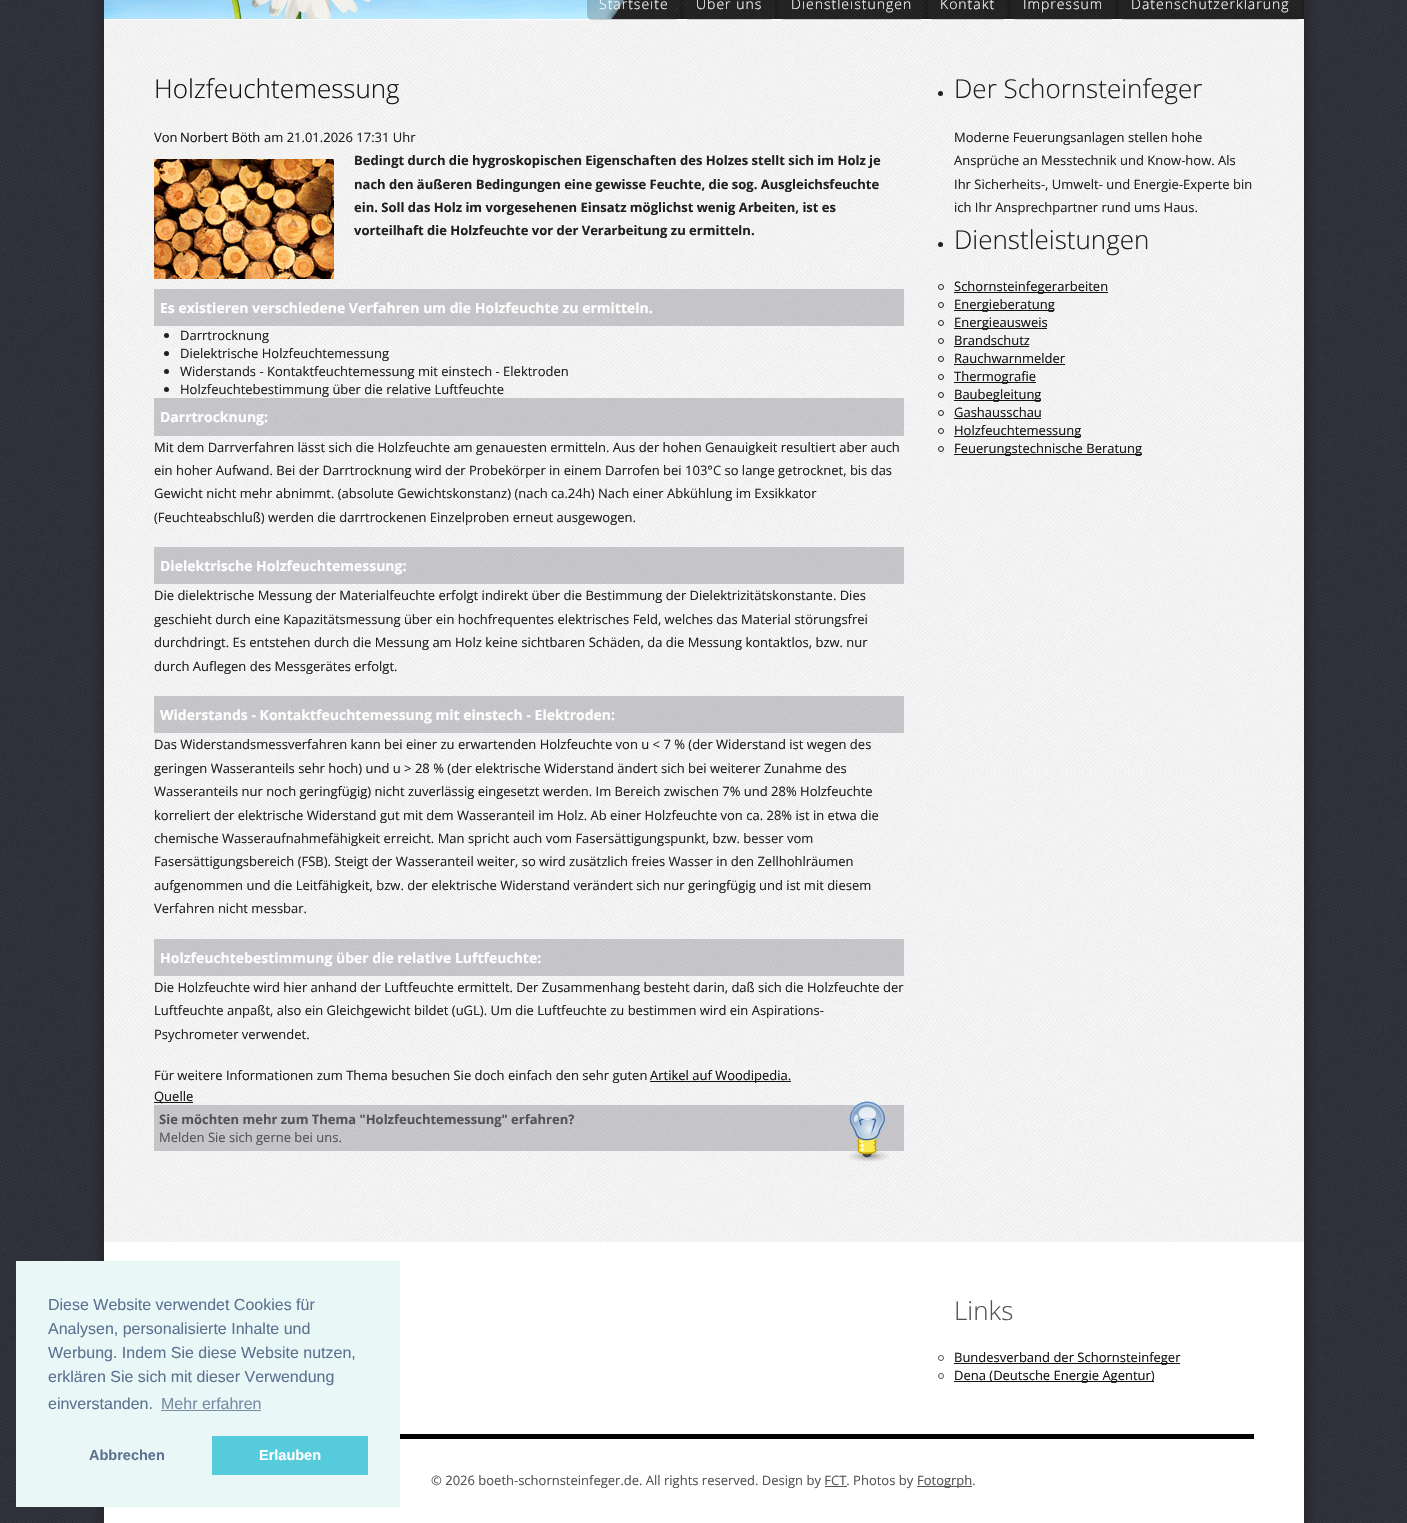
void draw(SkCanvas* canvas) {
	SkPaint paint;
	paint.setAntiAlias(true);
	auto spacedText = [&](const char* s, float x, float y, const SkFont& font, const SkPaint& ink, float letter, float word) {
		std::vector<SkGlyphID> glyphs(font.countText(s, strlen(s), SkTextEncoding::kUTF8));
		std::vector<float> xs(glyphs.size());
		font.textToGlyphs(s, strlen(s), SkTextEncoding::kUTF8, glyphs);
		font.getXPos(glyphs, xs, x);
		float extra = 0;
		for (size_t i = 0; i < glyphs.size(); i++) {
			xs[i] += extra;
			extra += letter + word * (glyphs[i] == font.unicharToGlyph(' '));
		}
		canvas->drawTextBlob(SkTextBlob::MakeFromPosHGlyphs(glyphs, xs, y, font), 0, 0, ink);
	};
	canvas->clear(0xff22222d);
	canvas->drawImageRect(SkImages::DeferredFromEncodedData(SkData::MakeFromFileName("img1.png")), SkRect::MakeXYWH(0, 0, 1407, 1523), SkSamplingOptions());
	paint.setColor(0x33000000);
	paint.setMaskFilter(SkMaskFilter::MakeBlur(kNormal_SkBlurStyle, 5));
	canvas->drawRect(SkRect::MakeXYWH(99, -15, 1210, 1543), paint);
	paint.setMaskFilter(nullptr);
	paint.setColor(0xffffffff);
	canvas->drawRect(SkRect::MakeXYWH(104, 19, 1200, 1504), paint);
	canvas->drawImageRect(SkImages::DeferredFromEncodedData(SkData::MakeFromFileName("img2.png")), SkRect::MakeXYWH(104, 0, 1200, 19), SkSamplingOptions());
	paint.setColor(0x40333333);
	canvas->drawRoundRect(SkRect::MakeXYWH(587, -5, 93, 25), 5, 5, paint);
	SkFont f1(fontMgr->matchFamilyStyle("Open Sans", SkFontStyle(300, SkFontStyle::kNormal_Width, SkFontStyle::kUpright_Slant)), 14);
	f1.setSubpixel(true);
	paint.setColor(0xffffffff);
	spacedText("Startseite", 599, 9, f1, paint, 1, 0);
	paint.setColor(0x40333333);
	canvas->drawRoundRect(SkRect::MakeXYWH(684, -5, 91, 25), 5, 5, paint);
	paint.setColor(0xffffffff);
	spacedText("Über uns", 696, 9, f1, paint, 1, 0);
	paint.setColor(0x40333333);
	canvas->drawRoundRect(SkRect::MakeXYWH(779, -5, 145, 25), 5, 5, paint);
	paint.setColor(0xffffffff);
	spacedText("Dienstleistungen", 791, 9, f1, paint, 1, 0);
	paint.setColor(0x40333333);
	canvas->drawRoundRect(SkRect::MakeXYWH(928, -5, 79, 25), 5, 5, paint);
	paint.setColor(0xffffffff);
	spacedText("Kontakt", 940, 9, f1, paint, 1, 0);
	paint.setColor(0x40333333);
	canvas->drawRoundRect(SkRect::MakeXYWH(1011, -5, 104, 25), 5, 5, paint);
	paint.setColor(0xffffffff);
	spacedText("Impressum", 1023, 9, f1, paint, 1, 0);
	paint.setColor(0x40333333);
	canvas->drawRoundRect(SkRect::MakeXYWH(1119, -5, 183, 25), 5, 5, paint);
	paint.setColor(0xffffffff);
	spacedText("Datenschutzerklärung", 1131, 9, f1, paint, 1, 0);
	paint.setColor(0xfff6f6f6);
	canvas->drawRect(SkRect::MakeXYWH(104, 20, 1200, 1222), paint);
	canvas->drawImageRect(SkImages::DeferredFromEncodedData(SkData::MakeFromFileName("img3.png")), SkRect::MakeXYWH(104, 20, 1200, 1222), SkSamplingOptions());
	SkFont f2(fontMgr->matchFamilyStyle("Open Sans", SkFontStyle(300, SkFontStyle::kNormal_Width, SkFontStyle::kUpright_Slant)), 26);
	f2.setSubpixel(true);
	paint.setColor(0xff141414);
	canvas->drawString("Holzfeuchtemessung", 154, 98, f2, paint);
	SkFont f3(fontMgr->matchFamilyStyle("Open Sans", SkFontStyle::Normal()), 13);
	f3.setSubpixel(true);
	paint.setColor(0xff202020);
	canvas->drawString("Von", 154, 142, f3, paint);
	paint.setColor(0xff141414);
	canvas->drawString("Norbert Böth", 180, 142, f3, paint);
	paint.setColor(0xff202020);
	canvas->drawString("am 21.01.2026 17:31 Uhr", 264, 142, f3, paint);
	canvas->drawImageRect(SkImages::DeferredFromEncodedData(SkData::MakeFromFileName("img4.png")), SkRect::MakeXYWH(154, 159, 180, 120), SkSamplingOptions());
	SkFont f4(fontMgr->matchFamilyStyle("Open Sans", SkFontStyle::Bold()), 13);
	f4.setSubpixel(true);
	canvas->drawString("Bedingt durch die hygroskopischen Eigenschaften des Holzes stellt sich im Holz je", 354, 165, f4, paint);
	canvas->drawString("nach den äußeren Bedingungen eine gewisse Feuchte, die sog. Ausgleichsfeuchte", 354, 189, f4, paint);
	canvas->drawString("ein. Soll das Holz im vorgesehenen Einsatz möglichst wenig Arbeiten, ist es", 354, 212, f4, paint);
	canvas->drawString("vorteilhaft die Holzfeuchte vor der Verarbeitung zu ermitteln.", 354, 235, f4, paint);
	paint.setColor(0x403f3f4f);
	canvas->drawRect(SkRect::MakeXYWH(154, 289, 750, 37), paint);
	SkFont f5(fontMgr->matchFamilyStyle("Open Sans", SkFontStyle::Bold()), 14);
	f5.setSubpixel(true);
	paint.setColor(0xffffffff);
	canvas->drawString("Es existieren verschiedene Verfahren um die Holzfeuchte zu ermitteln.", 160, 313, f5, paint);
	paint.setColor(0xff202020);
	canvas->drawCircle(166.5, 335.5, 2.5, paint);
	canvas->drawString("Darrtrocknung", 180, 340, f3, paint);
	canvas->drawCircle(166.5, 353.5, 2.5, paint);
	canvas->drawString("Dielektrische Holzfeuchtemessung", 180, 358, f3, paint);
	canvas->drawCircle(166.5, 371.5, 2.5, paint);
	canvas->drawString("Widerstands - Kontaktfeuchtemessung mit einstech - Elektroden", 180, 376, f3, paint);
	canvas->drawCircle(166.5, 389.5, 2.5, paint);
	canvas->drawString("Holzfeuchtebestimmung über die relative Luftfeuchte", 180, 394, f3, paint);
	paint.setColor(0x403f3f4f);
	canvas->drawRect(SkRect::MakeXYWH(154, 398, 750, 38), paint);
	paint.setColor(0xffffffff);
	canvas->drawString("Darrtrocknung:", 160, 422, f5, paint);
	paint.setColor(0xff202020);
	canvas->drawString("Mit dem Darrverfahren lässt sich die Holzfeuchte am genauesten ermitteln. Aus der hohen Genauigkeit resultiert aber auch", 154, 452, f3, paint);
	canvas->drawString("ein hoher Aufwand. Bei der Darrtrocknung wird der Probekörper in einem Darrofen bei 103°C so lange getrocknet, bis das", 154, 475, f3, paint);
	canvas->drawString("Gewicht nicht mehr abnimmt. (absolute Gewichtskonstanz) (nach ca.24h) Nach einer Abkühlung im Exsikkator", 154, 498, f3, paint);
	canvas->drawString("(Feuchteabschluß) werden die darrtrockenen Einzelproben erneut ausgewogen.", 154, 522, f3, paint);
	paint.setColor(0x403f3f4f);
	canvas->drawRect(SkRect::MakeXYWH(154, 547, 750, 37), paint);
	paint.setColor(0xffffffff);
	canvas->drawString("Dielektrische Holzfeuchtemessung:", 160, 571, f5, paint);
	paint.setColor(0xff202020);
	canvas->drawString("Die dielektrische Messung der Materialfeuchte erfolgt indirekt über die Bestimmung der Dielektrizitätskonstante. Dies", 154, 600, f3, paint);
	canvas->drawString("geschieht durch eine Kapazitätsmessung über ein hochfrequentes elektrisches Feld, welches das Material störungsfrei", 154, 624, f3, paint);
	canvas->drawString("durchdringt. Es entstehen durch die Messung am Holz keine sichtbaren Schäden, da die Messung kontaktlos, bzw. nur", 154, 647, f3, paint);
	canvas->drawString("durch Auflegen des Messgerätes erfolgt.", 154, 671, f3, paint);
	paint.setColor(0x403f3f4f);
	canvas->drawRect(SkRect::MakeXYWH(154, 696, 750, 37), paint);
	paint.setColor(0xffffffff);
	canvas->drawString("Widerstands - Kontaktfeuchtemessung mit einstech - Elektroden:", 160, 720, f5, paint);
	paint.setColor(0xff202020);
	canvas->drawString("Das Widerstandsmessverfahren kann bei einer zu erwartenden Holzfeuchte von u < 7 % (der Widerstand ist wegen des", 154, 749, f3, paint);
	canvas->drawString("geringen Wasseranteils sehr hoch) und u > 28 % (der elektrische Widerstand ändert sich bei weiterer Zunahme des", 154, 773, f3, paint);
	canvas->drawString("Wasseranteils nur noch geringfügig) nicht zuverlässig eingesetzt werden. Im Bereich zwischen 7% und 28% Holzfeuchte", 154, 796, f3, paint);
	canvas->drawString("korreliert der elektrische Widerstand gut mit dem Wasseranteil im Holz. Ab einer Holzfeuchte von ca. 28% ist in etwa die", 154, 820, f3, paint);
	canvas->drawString("chemische Wasseraufnahmefähigkeit erreicht. Man spricht auch vom Fasersättigungspunkt, bzw. besser vom", 154, 843, f3, paint);
	canvas->drawString("Fasersättigungsbereich (FSB). Steigt der Wasseranteil weiter, so wird zusätzlich freies Wasser in den Zellhohlräumen", 154, 866, f3, paint);
	canvas->drawString("aufgenommen und die Leitfähigkeit, bzw. der elektrische Widerstand verändert sich nur geringfügig und ist mit diesem", 154, 890, f3, paint);
	canvas->drawString("Verfahren nicht messbar.", 154, 913, f3, paint);
	paint.setColor(0x403f3f4f);
	canvas->drawRect(SkRect::MakeXYWH(154, 939, 750, 37), paint);
	paint.setColor(0xffffffff);
	canvas->drawString("Holzfeuchtebestimmung über die relative Luftfeuchte:", 160, 963, f5, paint);
	paint.setColor(0xff202020);
	canvas->drawString("Die Holzfeuchte wird hier anhand der Luftfeuchte ermittelt. Der Zusammenhang besteht darin, daß sich die Holzfeuchte der", 154, 992, f3, paint);
	canvas->drawString("Luftfeuchte anpaßt, also ein Gleichgewicht bildet (uGL). Um die Luftfeuchte zu bestimmen wird ein Aspirations-", 154, 1015, f3, paint);
	canvas->drawString("Psychrometer verwendet.", 154, 1039, f3, paint);
	canvas->drawString("Für weitere Informationen zum Thema besuchen Sie doch einfach den sehr guten", 154, 1080, f3, paint);
	paint.setColor(0xff141414);
	canvas->drawRect(SkRect::MakeXYWH(650, 1081, 141, 1), paint);
	canvas->drawString("Artikel auf Woodipedia.", 650, 1080, f3, paint);
	canvas->drawRect(SkRect::MakeXYWH(154, 1102, 39, 1), paint);
	canvas->drawString("Quelle", 154, 1101, f3, paint);
	paint.setColor(0x403f3f4f);
	canvas->drawRect(SkRect::MakeXYWH(154, 1105, 750, 46), paint);
	paint.setColor(0xff545454);
	canvas->drawString("Sie möchten mehr zum Thema \"Holzfeuchtemessung\" erfahren?", 159, 1124, f4, paint);
	canvas->drawImageRect(SkImages::DeferredFromEncodedData(SkData::MakeFromFileName("img5.png")), SkRect::MakeXYWH(849, 1101, 40, 61), SkSamplingOptions());
	canvas->drawString("Melden Sie sich gerne bei uns.", 159, 1142, f3, paint);
	paint.setColor(0xff202020);
	canvas->drawCircle(940.5, 93.5, 2.5, paint);
	canvas->drawString("Der Schornsteinfeger", 954, 98, f2, paint);
	canvas->drawString("Moderne Feuerungsanlagen stellen hohe", 954, 142, f3, paint);
	canvas->drawString("Ansprüche an Messtechnik und Know-how. Als", 954, 165, f3, paint);
	canvas->drawString("Ihr Sicherheits-, Umwelt- und Energie-Experte bin", 954, 189, f3, paint);
	canvas->drawString("ich Ihr Ansprechpartner rund ums Haus.", 954, 212, f3, paint);
	canvas->drawCircle(940.5, 244.5, 2.5, paint);
	canvas->drawString("Dienstleistungen", 954, 249, f2, paint);
	paint.setStroke(true);
	paint.setStrokeWidth(1);
	canvas->drawCircle(941, 287, 2.5, paint);
	paint.setStroke(false);
	paint.setColor(0xff141414);
	canvas->drawRect(SkRect::MakeXYWH(954, 292, 154, 1), paint);
	canvas->drawString("Schornsteinfegerarbeiten", 954, 291, f3, paint);
	paint.setStroke(true);
	paint.setColor(0xff202020);
	canvas->drawCircle(941, 305, 2.5, paint);
	paint.setStroke(false);
	paint.setColor(0xff141414);
	canvas->drawRect(SkRect::MakeXYWH(954, 310, 100, 1), paint);
	canvas->drawString("Energieberatung", 954, 309, f3, paint);
	paint.setStroke(true);
	paint.setColor(0xff202020);
	canvas->drawCircle(941, 323, 2.5, paint);
	paint.setStroke(false);
	paint.setColor(0xff141414);
	canvas->drawRect(SkRect::MakeXYWH(954, 328, 93, 1), paint);
	canvas->drawString("Energieausweis", 954, 327, f3, paint);
	paint.setStroke(true);
	paint.setColor(0xff202020);
	canvas->drawCircle(941, 341, 2.5, paint);
	paint.setStroke(false);
	paint.setColor(0xff141414);
	canvas->drawString("Brandschutz", 954, 345, f3, paint);
	canvas->drawRect(SkRect::MakeXYWH(954, 346, 75, 1), paint);
	paint.setStroke(true);
	paint.setColor(0xff202020);
	canvas->drawCircle(941, 359, 2.5, paint);
	paint.setStroke(false);
	paint.setColor(0xff141414);
	canvas->drawString("Rauchwarnmelder", 954, 363, f3, paint);
	canvas->drawRect(SkRect::MakeXYWH(954, 364, 111, 1), paint);
	paint.setStroke(true);
	paint.setColor(0xff202020);
	canvas->drawCircle(941, 377, 2.5, paint);
	paint.setStroke(false);
	paint.setColor(0xff141414);
	canvas->drawRect(SkRect::MakeXYWH(954, 382, 82, 1), paint);
	canvas->drawString("Thermografie", 954, 381, f3, paint);
	paint.setStroke(true);
	paint.setColor(0xff202020);
	canvas->drawCircle(941, 395, 2.5, paint);
	paint.setStroke(false);
	paint.setColor(0xff141414);
	canvas->drawRect(SkRect::MakeXYWH(954, 400, 87, 1), paint);
	canvas->drawString("Baubegleitung", 954, 399, f3, paint);
	paint.setStroke(true);
	paint.setColor(0xff202020);
	canvas->drawCircle(941, 413, 2.5, paint);
	paint.setStroke(false);
	paint.setColor(0xff141414);
	canvas->drawString("Gashausschau", 954, 417, f3, paint);
	canvas->drawRect(SkRect::MakeXYWH(954, 418, 87, 1), paint);
	paint.setStroke(true);
	paint.setColor(0xff202020);
	canvas->drawCircle(941, 431, 2.5, paint);
	paint.setStroke(false);
	paint.setColor(0xff141414);
	canvas->drawRect(SkRect::MakeXYWH(954, 436, 127, 1), paint);
	canvas->drawString("Holzfeuchtemessung", 954, 435, f3, paint);
	paint.setStroke(true);
	paint.setColor(0xff202020);
	canvas->drawCircle(941, 449, 2.5, paint);
	paint.setStroke(false);
	paint.setColor(0xff141414);
	canvas->drawRect(SkRect::MakeXYWH(954, 454, 188, 1), paint);
	canvas->drawString("Feuerungstechnische Beratung", 954, 453, f3, paint);
	paint.setColor(0xff545454);
	canvas->drawString("Links", 954, 1320, f2, paint);
	paint.setStroke(true);
	canvas->drawCircle(941, 1358, 2.5, paint);
	paint.setStroke(false);
	paint.setColor(0xff141414);
	canvas->drawRect(SkRect::MakeXYWH(954, 1363, 226, 1), paint);
	canvas->drawString("Bundesverband der Schornsteinfeger", 954, 1362, f3, paint);
	paint.setStroke(true);
	paint.setColor(0xff545454);
	canvas->drawCircle(941, 1376, 2.5, paint);
	paint.setStroke(false);
	paint.setColor(0xff141414);
	canvas->drawRect(SkRect::MakeXYWH(954, 1381, 200, 1), paint);
	canvas->drawString("Dena (Deutsche Energie Agentur)", 954, 1380, f3, paint);
	paint.setColor(0xff000000);
	canvas->drawRect(SkRect::MakeXYWH(400, 1434, 854, 5), paint);
	paint.setColor(0xff545454);
	canvas->drawString("© 2026 boeth-schornsteinfeger.de. All rights reserved. Design by FCT. Photos by", 431, 1485, f3, paint);
	canvas->drawRect(SkRect::MakeXYWH(917, 1486, 55, 1), paint);
	canvas->drawString("Fotogrph.", 917, 1485, f3, paint);
	canvas->drawRect(SkRect::MakeXYWH(825, 1486, 22, 1), paint);
	paint.setColor(0xffeaf7f7);
	canvas->drawRect(SkRect::MakeXYWH(16, 1261, 384, 246), paint);
	SkFont f6(fontMgr->matchFamilyStyle("Liberation Sans", SkFontStyle::Normal()), 16);
	f6.setSubpixel(true);
	paint.setColor(0xff5c7291);
	canvas->drawString("Diese Website verwendet Cookies für", 48, 1310, f6, paint);
	canvas->drawString("Analysen, personalisierte Inhalte und", 48, 1334, f6, paint);
	canvas->drawString("Werbung. Indem Sie diese Website nutzen,", 48, 1358, f6, paint);
	canvas->drawString("erklären Sie sich mit dieser Verwendung", 48, 1382, f6, paint);
	canvas->drawString("einverstanden.", 48, 1409, f6, paint);
	paint.setColor(0xff788da5);
	canvas->drawString("Mehr erfahren", 161, 1409, f6, paint);
	canvas->drawRect(SkRect::MakeXYWH(161, 1410, 100, 1), paint);
	SkFont f7(fontMgr->matchFamilyStyle("Liberation Sans", SkFontStyle::Bold()), 14.5);
	f7.setSubpixel(true);
	paint.setColor(0xff5c7291);
	canvas->drawString("Abbrechen", 89, 1460, f7, paint);
	paint.setColor(0xff56cbdb);
	canvas->drawRect(SkRect::MakeXYWH(212, 1436, 156, 39), paint);
	paint.setColor(0xffffffff);
	canvas->drawString("Erlauben", 259, 1460, f7, paint);
}
